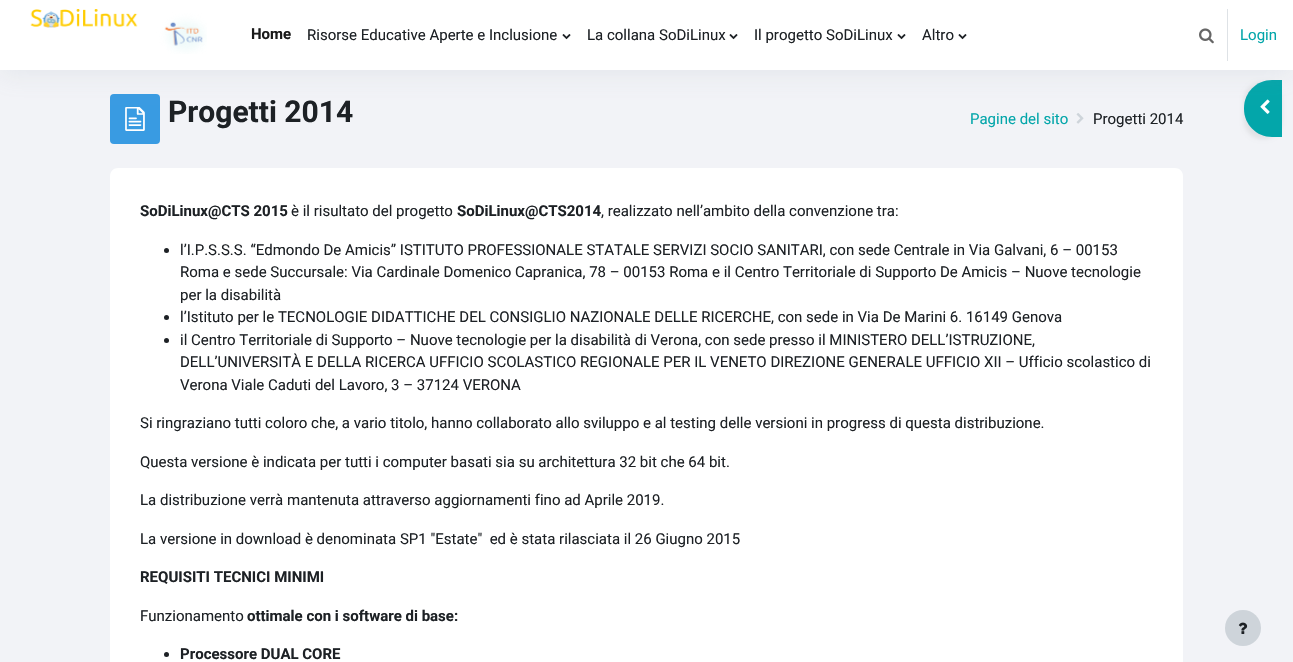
void draw(SkCanvas* canvas) {
	SkPaint paint;
	paint.setAntiAlias(true);
	auto svgPath = [&](const char* data, bool evenOdd = false) {
		SkPath result = *SkParsePath::FromSVGString(data);
		if (evenOdd) result.setFillType(SkPathFillType::kEvenOdd);
		return result;
	};
	canvas->clear(0xfff2f3f7);
	paint.setColor(0xff399be2);
	canvas->drawRoundRect(SkRect::MakeXYWH(110, 94, 50, 50), 4, 4, paint);
	canvas->drawImageRect(SkImages::DeferredFromEncodedData(SkData::MakeFromFileName("img4.png")), SkRect::MakeXYWH(125, 107, 20, 24), SkSamplingOptions());
	paint.setColor(0x12000000);
	paint.setMaskFilter(SkMaskFilter::MakeBlur(kNormal_SkBlurStyle, 2));
	canvas->drawRoundRect(SkRect::MakeXYWH(1244, 82, 38, 57), 28, 28, paint);
	paint.setMaskFilter(nullptr);
	paint.setColor(0xff03a6aa);
	canvas->drawPath(svgPath("M1272 80H1282V137H1272C1256.5 137 1244 124.5 1244 109V108C1244 92.5 1256.5 80 1272 80Z"), paint);
	canvas->drawImageRect(SkImages::DeferredFromEncodedData(SkData::MakeFromFileName("img6.png")), SkRect::MakeXYWH(1260, 99, 10, 15), SkSamplingOptions());
	paint.setColor(0x218c98a4);
	paint.setMaskFilter(SkMaskFilter::MakeBlur(kNormal_SkBlurStyle, 12));
	canvas->drawRect(SkRect::MakeXYWH(0, 6, 1293, 70), paint);
	paint.setMaskFilter(nullptr);
	paint.setColor(0xffffffff);
	canvas->drawRect(SkRect::MakeXYWH(0, 0, 1293, 70), paint);
	canvas->drawImageRect(SkImages::DeferredFromEncodedData(SkData::MakeFromFileName("img1.png")), SkRect::MakeXYWH(30, 9, 177, 45), SkSamplingOptions());
	SkFont f1(fontMgr->matchFamilyStyle("Roboto", SkFontStyle::Bold()), 15);
	f1.setSubpixel(true);
	paint.setColor(0xff1a1a1a);
	canvas->drawString("Home", 251, 39, f1, paint);
	SkFont f2(fontMgr->matchFamilyStyle("Roboto", SkFontStyle::Normal()), 15);
	f2.setSubpixel(true);
	paint.setColor(0xff1d2125);
	canvas->drawString("Risorse Educative Aperte e Inclusione", 307, 40, f2, paint);
	canvas->drawImageRect(SkImages::DeferredFromEncodedData(SkData::MakeFromFileName("img2.png")), SkRect::MakeXYWH(562, 34, 9, 6), SkSamplingOptions());
	canvas->drawString("La collana SoDiLinux", 587, 40, f2, paint);
	canvas->drawImageRect(SkImages::DeferredFromEncodedData(SkData::MakeFromFileName("img2.png")), SkRect::MakeXYWH(729, 34, 9, 6), SkSamplingOptions());
	canvas->drawString("Il progetto SoDiLinux", 754, 40, f2, paint);
	canvas->drawImageRect(SkImages::DeferredFromEncodedData(SkData::MakeFromFileName("img2.png")), SkRect::MakeXYWH(897, 34, 9, 6), SkSamplingOptions());
	canvas->drawString("Altro", 922, 40, f2, paint);
	canvas->drawImageRect(SkImages::DeferredFromEncodedData(SkData::MakeFromFileName("img2.png")), SkRect::MakeXYWH(958, 34, 9, 6), SkSamplingOptions());
	canvas->drawImageRect(SkImages::DeferredFromEncodedData(SkData::MakeFromFileName("img3.png")), SkRect::MakeXYWH(1199, 28, 15, 16), SkSamplingOptions());
	paint.setColor(0xffdee2e6);
	canvas->drawRect(SkRect::MakeXYWH(1227, 9, 1, 52), paint);
	paint.setColor(0xff03a6aa);
	canvas->drawString("Login", 1240, 40, f2, paint);
	SkFont f3(fontMgr->matchFamilyStyle("Roboto", SkFontStyle::Bold()), 30);
	f3.setSubpixel(true);
	paint.setColor(0xff1d2125);
	canvas->drawString("Progetti 2014", 168, 122, f3, paint);
	paint.setColor(0xff03a6aa);
	canvas->drawString("Pagine del sito", 970, 124, f2, paint);
	canvas->drawImageRect(SkImages::DeferredFromEncodedData(SkData::MakeFromFileName("img5.png")), SkRect::MakeXYWH(1076, 113, 8, 11), SkSamplingOptions());
	paint.setColor(0xff1d2125);
	canvas->drawString("Progetti 2014", 1093, 124, f2, paint);
	paint.setColor(0xffffffff);
	canvas->drawPath(svgPath("M118 168H1175C1179.5 168 1183 171.5 1183 176V662H110V176C110 171.5 113.5 168 118 168Z"), paint);
	paint.setColor(0xff1d2125);
	canvas->drawString("SoDiLinux@CTS 2015", 140, 216, f1, paint);
	canvas->drawString("è il risultato del progetto", 291, 216, f2, paint);
	canvas->drawString("SoDiLinux@CTS2014", 457, 216, f1, paint);
	canvas->drawString(", realizzato nell’ambito della convenzione tra:", 601, 216, f2, paint);
	canvas->drawCircle(166.5, 250.5, 2.5, paint);
	canvas->drawString("l’I.P.S.S.S. “Edmondo De Amicis” ISTITUTO PROFESSIONALE STATALE SERVIZI SOCIO SANITARI, con sede Centrale in Via Galvani, 6 – 00153", 180, 255, f2, paint);
	canvas->drawString("Roma e sede Succursale: Via Cardinale Domenico Capranica, 78 – 00153 Roma e il Centro Territoriale di Supporto De Amicis – Nuove tecnologie", 180, 277, f2, paint);
	canvas->drawString("per la disabilità", 180, 300, f2, paint);
	canvas->drawCircle(166.5, 317.5, 2.5, paint);
	canvas->drawString("l’Istituto per le TECNOLOGIE DIDATTICHE DEL CONSIGLIO NAZIONALE DELLE RICERCHE, con sede in Via De Marini 6. 16149 Genova", 180, 322, f2, paint);
	canvas->drawCircle(166.5, 340.5, 2.5, paint);
	canvas->drawString("il Centro Territoriale di Supporto – Nuove tecnologie per la disabilità di Verona, con sede presso il MINISTERO DELL’ISTRUZIONE,", 180, 345, f2, paint);
	canvas->drawString("DELL’UNIVERSITÀ E DELLA RICERCA UFFICIO SCOLASTICO REGIONALE PER IL VENETO DIREZIONE GENERALE UFFICIO XII – Ufficio scolastico di", 180, 367, f2, paint);
	canvas->drawString("Verona Viale Caduti del Lavoro, 3 – 37124 VERONA", 180, 390, f2, paint);
	canvas->drawString("Si ringraziano tutti coloro che, a vario titolo, hanno collaborato allo sviluppo e al testing delle versioni in progress di questa distribuzione.", 140, 428, f2, paint);
	canvas->drawString("Questa versione è indicata per tutti i computer basati sia su architettura 32 bit che 64 bit.", 140, 467, f2, paint);
	canvas->drawString("La distribuzione verrà mantenuta attraverso aggiornamenti fino ad Aprile 2019.", 140, 505, f2, paint);
	canvas->drawString("La versione in download è denominata SP1 \"Estate\"  ed è stata rilasciata il 26 Giugno 2015", 140, 544, f2, paint);
	canvas->drawString("REQUISITI TECNICI MINIMI", 140, 582, f1, paint);
	canvas->drawString("Funzionamento", 140, 621, f2, paint);
	canvas->drawString("ottimale con i software di base:", 247, 621, f1, paint);
	canvas->drawCircle(166.5, 654.5, 2.5, paint);
	canvas->drawString("Processore DUAL CORE", 180, 659, f1, paint);
	paint.setColor(0xffced4da);
	canvas->drawCircle(1243, 628, 18, paint);
	canvas->drawImageRect(SkImages::DeferredFromEncodedData(SkData::MakeFromFileName("img7.png")), SkRect::MakeXYWH(1238, 622, 10, 12), SkSamplingOptions());
}
